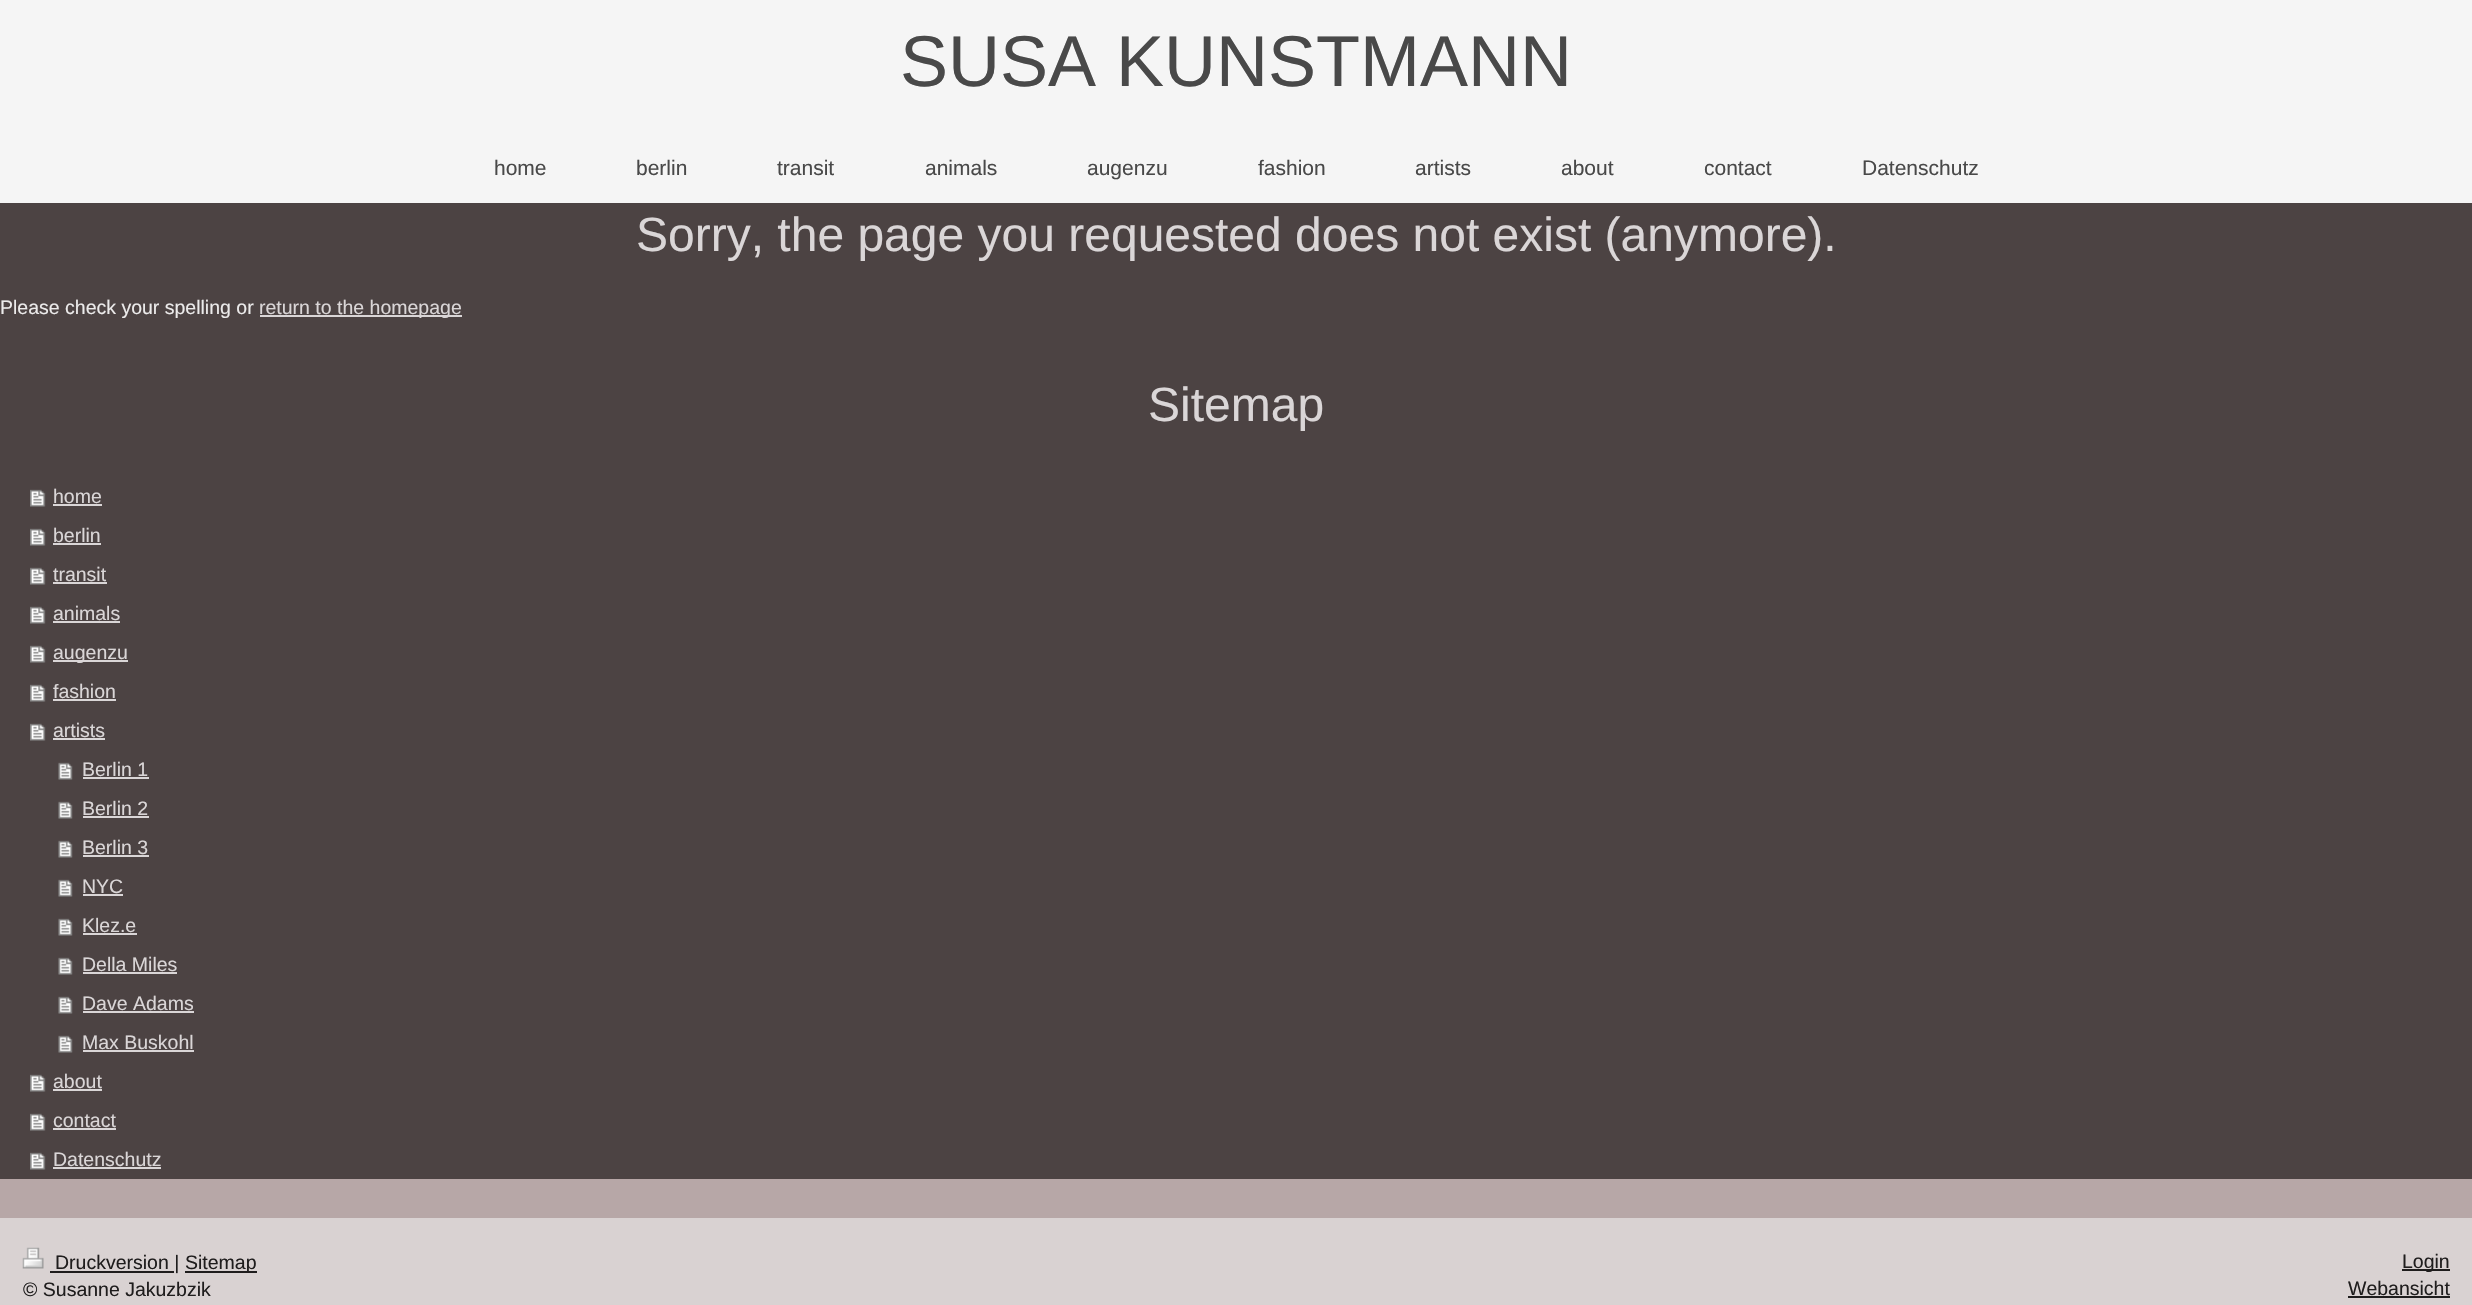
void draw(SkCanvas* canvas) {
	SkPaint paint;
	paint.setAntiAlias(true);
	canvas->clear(0xffb7a7a7);
	paint.setColor(0xfff5f5f5);
	canvas->drawRect(SkRect::MakeXYWH(0, 0, 2472, 203), paint);
	SkFont f1(fontMgr->matchFamilyStyle("Liberation Sans", SkFontStyle::Normal()), 72);
	f1.setSubpixel(true);
	paint.setColor(0xff494949);
	canvas->drawString("SUSA KUNSTMANN", 900, 86, f1, paint);
	SkFont f2(fontMgr->matchFamilyStyle("Liberation Sans", SkFontStyle::Normal()), 21);
	f2.setSubpixel(true);
	canvas->drawString("home", 494, 175, f2, paint);
	canvas->drawString("berlin", 636, 175, f2, paint);
	canvas->drawString("transit", 777, 175, f2, paint);
	canvas->drawString("animals", 925, 175, f2, paint);
	canvas->drawString("augenzu", 1087, 175, f2, paint);
	canvas->drawString("fashion", 1258, 175, f2, paint);
	canvas->drawString("artists", 1415, 175, f2, paint);
	canvas->drawString("about", 1561, 175, f2, paint);
	canvas->drawString("contact", 1704, 175, f2, paint);
	canvas->drawString("Datenschutz", 1862, 175, f2, paint);
	paint.setColor(0xff4c4343);
	canvas->drawRect(SkRect::MakeXYWH(0, 203, 2472, 976), paint);
	SkFont f3(fontMgr->matchFamilyStyle("Liberation Sans", SkFontStyle::Normal()), 48);
	f3.setSubpixel(true);
	paint.setColor(0xffdad6d7);
	canvas->drawString("Sorry, the page you requested does not exist (anymore).", 636, 251, f3, paint);
	SkFont f4(fontMgr->matchFamilyStyle("Liberation Sans", SkFontStyle::Normal()), 19.5);
	f4.setSubpixel(true);
	paint.setColor(0xffecebeb);
	canvas->drawString("Please check your spelling or", 0, 314, f4, paint);
	paint.setColor(0xffdad6d7);
	canvas->drawRect(SkRect::MakeXYWH(260, 315, 202, 2), paint);
	canvas->drawString("return to the homepage", 259, 314, f4, paint);
	canvas->drawString("Sitemap", 1148, 421, f3, paint);
	canvas->drawImageRect(SkImages::DeferredFromEncodedData(SkData::MakeFromFileName("img1.png")), SkRect::MakeXYWH(30, 489, 16, 18), SkSamplingOptions());
	canvas->drawString("home", 53, 503, f4, paint);
	canvas->drawRect(SkRect::MakeXYWH(53, 504, 49, 2), paint);
	canvas->drawImageRect(SkImages::DeferredFromEncodedData(SkData::MakeFromFileName("img1.png")), SkRect::MakeXYWH(30, 528, 16, 18), SkSamplingOptions());
	canvas->drawString("berlin", 53, 542, f4, paint);
	canvas->drawRect(SkRect::MakeXYWH(53, 543, 48, 2), paint);
	canvas->drawImageRect(SkImages::DeferredFromEncodedData(SkData::MakeFromFileName("img1.png")), SkRect::MakeXYWH(30, 567, 16, 18), SkSamplingOptions());
	canvas->drawString("transit", 53, 581, f4, paint);
	canvas->drawRect(SkRect::MakeXYWH(53, 582, 54, 2), paint);
	canvas->drawImageRect(SkImages::DeferredFromEncodedData(SkData::MakeFromFileName("img1.png")), SkRect::MakeXYWH(30, 606, 16, 18), SkSamplingOptions());
	canvas->drawString("animals", 53, 620, f4, paint);
	canvas->drawRect(SkRect::MakeXYWH(53, 621, 67, 2), paint);
	canvas->drawImageRect(SkImages::DeferredFromEncodedData(SkData::MakeFromFileName("img1.png")), SkRect::MakeXYWH(30, 645, 16, 18), SkSamplingOptions());
	canvas->drawRect(SkRect::MakeXYWH(53, 660, 75, 2), paint);
	canvas->drawString("augenzu", 53, 659, f4, paint);
	canvas->drawImageRect(SkImages::DeferredFromEncodedData(SkData::MakeFromFileName("img1.png")), SkRect::MakeXYWH(30, 684, 16, 18), SkSamplingOptions());
	canvas->drawString("fashion", 53, 698, f4, paint);
	canvas->drawRect(SkRect::MakeXYWH(53, 699, 63, 2), paint);
	canvas->drawImageRect(SkImages::DeferredFromEncodedData(SkData::MakeFromFileName("img1.png")), SkRect::MakeXYWH(30, 723, 16, 18), SkSamplingOptions());
	canvas->drawString("artists", 53, 737, f4, paint);
	canvas->drawRect(SkRect::MakeXYWH(53, 738, 52, 2), paint);
	canvas->drawImageRect(SkImages::DeferredFromEncodedData(SkData::MakeFromFileName("img2.png")), SkRect::MakeXYWH(58, 762, 15, 18), SkSamplingOptions());
	canvas->drawString("Berlin 1", 82, 776, f4, paint);
	canvas->drawRect(SkRect::MakeXYWH(83, 777, 66, 2), paint);
	canvas->drawImageRect(SkImages::DeferredFromEncodedData(SkData::MakeFromFileName("img2.png")), SkRect::MakeXYWH(58, 801, 15, 18), SkSamplingOptions());
	canvas->drawString("Berlin 2", 82, 815, f4, paint);
	canvas->drawRect(SkRect::MakeXYWH(83, 816, 66, 2), paint);
	canvas->drawImageRect(SkImages::DeferredFromEncodedData(SkData::MakeFromFileName("img2.png")), SkRect::MakeXYWH(58, 840, 15, 18), SkSamplingOptions());
	canvas->drawString("Berlin 3", 82, 854, f4, paint);
	canvas->drawRect(SkRect::MakeXYWH(83, 855, 66, 2), paint);
	canvas->drawImageRect(SkImages::DeferredFromEncodedData(SkData::MakeFromFileName("img2.png")), SkRect::MakeXYWH(58, 879, 15, 18), SkSamplingOptions());
	canvas->drawString("NYC", 82, 893, f4, paint);
	canvas->drawRect(SkRect::MakeXYWH(83, 894, 40, 2), paint);
	canvas->drawImageRect(SkImages::DeferredFromEncodedData(SkData::MakeFromFileName("img2.png")), SkRect::MakeXYWH(58, 918, 15, 18), SkSamplingOptions());
	canvas->drawString("Klez.e", 82, 932, f4, paint);
	canvas->drawRect(SkRect::MakeXYWH(83, 933, 54, 2), paint);
	canvas->drawImageRect(SkImages::DeferredFromEncodedData(SkData::MakeFromFileName("img2.png")), SkRect::MakeXYWH(58, 957, 15, 18), SkSamplingOptions());
	canvas->drawString("Della Miles", 82, 971, f4, paint);
	canvas->drawRect(SkRect::MakeXYWH(83, 972, 94, 2), paint);
	canvas->drawImageRect(SkImages::DeferredFromEncodedData(SkData::MakeFromFileName("img2.png")), SkRect::MakeXYWH(58, 996, 15, 18), SkSamplingOptions());
	canvas->drawString("Dave Adams", 82, 1010, f4, paint);
	canvas->drawRect(SkRect::MakeXYWH(83, 1011, 111, 2), paint);
	canvas->drawImageRect(SkImages::DeferredFromEncodedData(SkData::MakeFromFileName("img2.png")), SkRect::MakeXYWH(58, 1035, 15, 18), SkSamplingOptions());
	canvas->drawString("Max Buskohl", 82, 1049, f4, paint);
	canvas->drawRect(SkRect::MakeXYWH(83, 1050, 111, 2), paint);
	canvas->drawImageRect(SkImages::DeferredFromEncodedData(SkData::MakeFromFileName("img1.png")), SkRect::MakeXYWH(30, 1074, 16, 18), SkSamplingOptions());
	canvas->drawString("about", 53, 1088, f4, paint);
	canvas->drawRect(SkRect::MakeXYWH(53, 1089, 49, 2), paint);
	canvas->drawImageRect(SkImages::DeferredFromEncodedData(SkData::MakeFromFileName("img1.png")), SkRect::MakeXYWH(30, 1113, 16, 18), SkSamplingOptions());
	canvas->drawString("contact", 53, 1127, f4, paint);
	canvas->drawRect(SkRect::MakeXYWH(53, 1128, 63, 2), paint);
	canvas->drawImageRect(SkImages::DeferredFromEncodedData(SkData::MakeFromFileName("img1.png")), SkRect::MakeXYWH(30, 1152, 16, 18), SkSamplingOptions());
	canvas->drawString("Datenschutz", 53, 1166, f4, paint);
	canvas->drawRect(SkRect::MakeXYWH(53, 1167, 108, 2), paint);
	paint.setColor(0xffd9d2d2);
	canvas->drawRect(SkRect::MakeXYWH(0, 1218, 2472, 87), paint);
	canvas->drawImageRect(SkImages::DeferredFromEncodedData(SkData::MakeFromFileName("img3.png")), SkRect::MakeXYWH(22, 1247, 22, 22), SkSamplingOptions());
	paint.setColor(0xff1f1d1d);
	canvas->drawRect(SkRect::MakeXYWH(50, 1271, 124, 2), paint);
	canvas->drawString("Druckversion |", 55, 1269, f4, paint);
	canvas->drawRect(SkRect::MakeXYWH(185, 1271, 72, 2), paint);
	canvas->drawString("Sitemap", 185, 1269, f4, paint);
	canvas->drawString("© Susanne Jakuzbzik", 23, 1296, f4, paint);
	canvas->drawRect(SkRect::MakeXYWH(2402, 1269, 48, 2), paint);
	canvas->drawString("Login", 2402, 1268, f4, paint);
	canvas->drawString("Webansicht", 2348, 1295, f4, paint);
	canvas->drawRect(SkRect::MakeXYWH(2348, 1296, 102, 2), paint);
}
